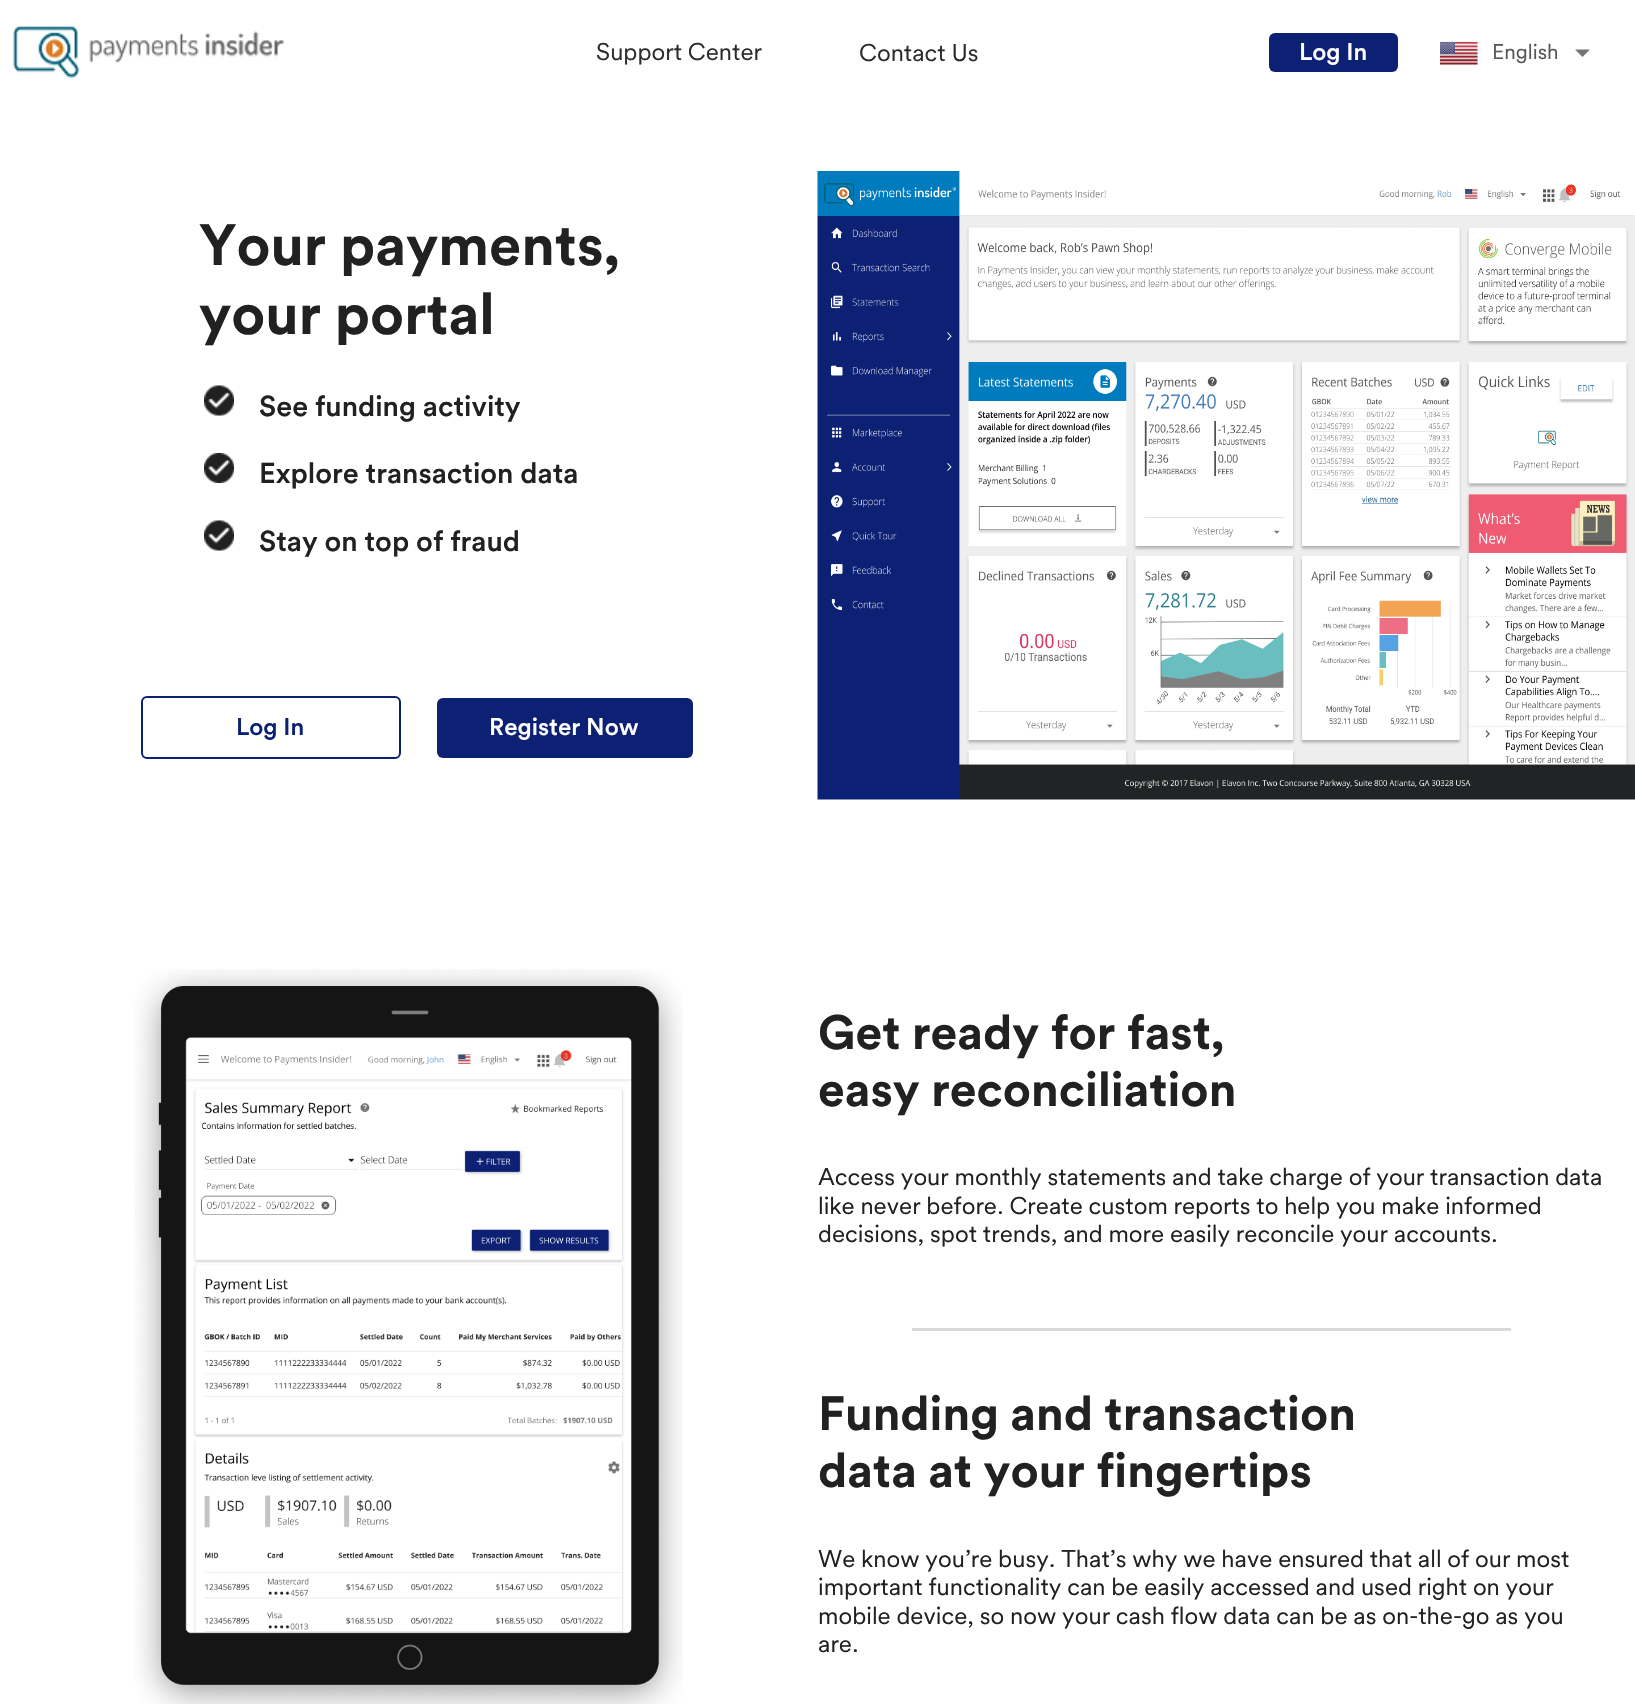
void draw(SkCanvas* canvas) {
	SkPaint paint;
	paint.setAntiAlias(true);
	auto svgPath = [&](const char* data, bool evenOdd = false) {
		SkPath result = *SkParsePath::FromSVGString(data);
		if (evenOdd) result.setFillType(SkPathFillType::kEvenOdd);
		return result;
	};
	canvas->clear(0xffffffff);
	canvas->drawImageRect(SkImages::DeferredFromEncodedData(SkData::MakeFromFileName("img1.png")), SkRect::MakeXYWH(13, 25, 271, 54), SkSamplingOptions());
	SkFont f1(fontMgr->matchFamilyStyle("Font", SkFontStyle::Normal()), 24);
	f1.setSubpixel(true);
	paint.setColor(0xff2c2c2c);
	canvas->drawString("Support Center", 596, 60, f1, paint);
	canvas->drawString("Contact Us", 859, 61, f1, paint);
	paint.setColor(0xff0c2074);
	canvas->drawRoundRect(SkRect::MakeXYWH(1269, 33, 129, 39), 6, 6, paint);
	SkFont f2(fontMgr->matchFamilyStyle("Font", SkFontStyle(500, SkFontStyle::kNormal_Width, SkFontStyle::kUpright_Slant)), 24);
	f2.setSubpixel(true);
	paint.setColor(0xffffffff);
	canvas->drawString("Log In", 1299, 60, f2, paint);
	canvas->drawImageRect(SkImages::DeferredFromEncodedData(SkData::MakeFromFileName("img2.png")), SkRect::MakeXYWH(1440, 41, 38, 24), SkSamplingOptions());
	SkFont f3(fontMgr->matchFamilyStyle("Font", SkFontStyle::Normal()), 21);
	f3.setSubpixel(true);
	paint.setColor(0xff565656);
	canvas->drawString("English", 1492, 59, f3, paint);
	paint.setColor(0xff757575);
	canvas->drawPath(svgPath("M1575 49.5L1582.5 57L1590 49.5Z"), paint);
	SkFont f4(fontMgr->matchFamilyStyle("Font", SkFontStyle::Bold()), 57.5);
	f4.setSubpixel(true);
	paint.setColor(0xff212121);
	canvas->drawString("Your payments,", 199, 265, f4, paint);
	canvas->drawString("your portal", 199, 334, f4, paint);
	canvas->drawImageRect(SkImages::DeferredFromEncodedData(SkData::MakeFromFileName("img3.png")), SkRect::MakeXYWH(204, 385, 30, 31), SkSamplingOptions());
	SkFont f5(fontMgr->matchFamilyStyle("Font", SkFontStyle(500, SkFontStyle::kNormal_Width, SkFontStyle::kUpright_Slant)), 28.6);
	f5.setSubpixel(true);
	canvas->drawString("See funding activity", 259, 416, f5, paint);
	canvas->drawImageRect(SkImages::DeferredFromEncodedData(SkData::MakeFromFileName("img4.png")), SkRect::MakeXYWH(204, 453, 30, 30), SkSamplingOptions());
	canvas->drawString("Explore transaction data", 259, 483, f5, paint);
	canvas->drawImageRect(SkImages::DeferredFromEncodedData(SkData::MakeFromFileName("img3.png")), SkRect::MakeXYWH(204, 520, 30, 31), SkSamplingOptions());
	canvas->drawString("Stay on top of fraud", 259, 551, f5, paint);
	paint.setStroke(true);
	paint.setStrokeWidth(2);
	paint.setColor(0xff0c2074);
	canvas->drawRoundRect(SkRect::MakeXYWH(142, 697, 258, 61), 5, 5, paint);
	paint.setStroke(false);
	canvas->drawString("Log In", 236, 735, f2, paint);
	canvas->drawRoundRect(SkRect::MakeXYWH(437, 698, 256, 60), 6, 6, paint);
	paint.setColor(0xffffffff);
	canvas->drawString("Register Now", 489, 735, f2, paint);
	canvas->drawImageRect(SkImages::DeferredFromEncodedData(SkData::MakeFromFileName("img5.png")), SkRect::MakeXYWH(817, 171, 818, 629), SkSamplingOptions());
	canvas->drawImageRect(SkImages::DeferredFromEncodedData(SkData::MakeFromFileName("img6.png")), SkRect::MakeXYWH(134, 969, 549, 735), SkSamplingOptions());
	SkFont f6(fontMgr->matchFamilyStyle("Font", SkFontStyle::Bold()), 47.75);
	f6.setSubpixel(true);
	paint.setColor(0xff212121);
	canvas->drawString("Get ready for fast,", 818, 1049, f6, paint);
	canvas->drawString("easy reconciliation", 818, 1106, f6, paint);
	canvas->drawString("Access your monthly statements and take charge of your transaction data", 818, 1185, f1, paint);
	canvas->drawString("like never before. Create custom reports to help you make informed", 818, 1214, f1, paint);
	canvas->drawString("decisions, spot trends, and more easily reconcile your accounts.", 818, 1242, f1, paint);
	paint.setColor(0xffd9d9d9);
	canvas->drawRect(SkRect::MakeXYWH(912, 1328, 599, 3), paint);
	paint.setColor(0xff212121);
	canvas->drawString("Funding and transaction", 818, 1430, f6, paint);
	canvas->drawString("data at your fingertips", 818, 1487, f6, paint);
	canvas->drawString("We know you’re busy. That’s why we have ensured that all of our most", 818, 1567, f1, paint);
	canvas->drawString("important functionality can be easily accessed and used right on your", 818, 1595, f1, paint);
	canvas->drawString("mobile device, so now your cash flow data can be as on-the-go as you", 818, 1624, f1, paint);
	canvas->drawString("are.", 818, 1652, f1, paint);
}
